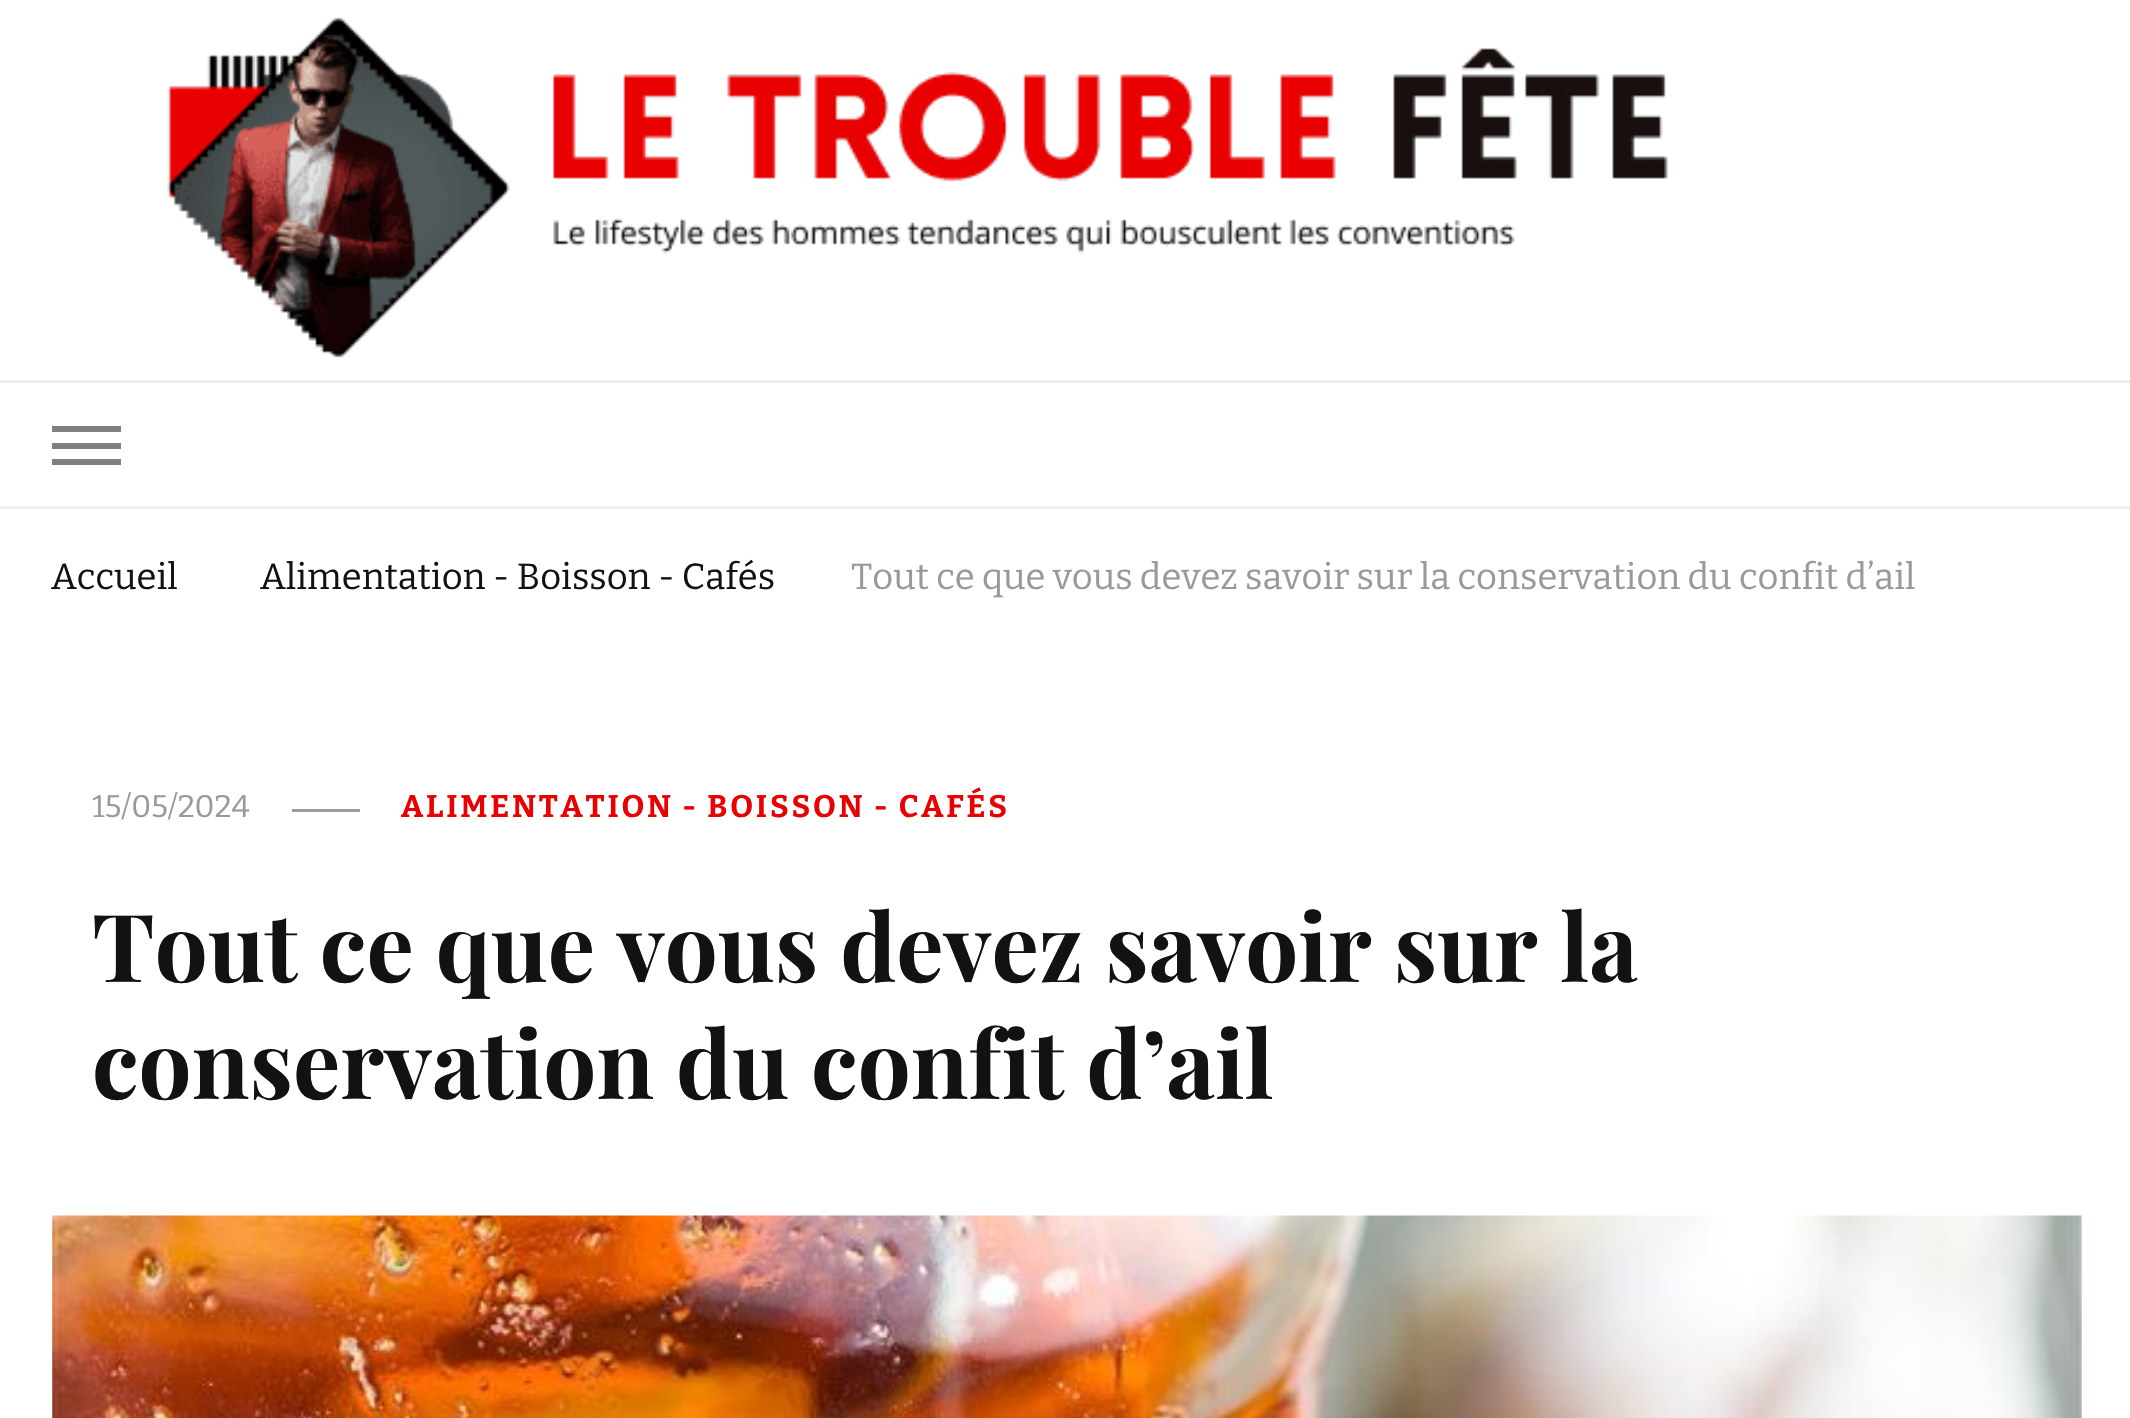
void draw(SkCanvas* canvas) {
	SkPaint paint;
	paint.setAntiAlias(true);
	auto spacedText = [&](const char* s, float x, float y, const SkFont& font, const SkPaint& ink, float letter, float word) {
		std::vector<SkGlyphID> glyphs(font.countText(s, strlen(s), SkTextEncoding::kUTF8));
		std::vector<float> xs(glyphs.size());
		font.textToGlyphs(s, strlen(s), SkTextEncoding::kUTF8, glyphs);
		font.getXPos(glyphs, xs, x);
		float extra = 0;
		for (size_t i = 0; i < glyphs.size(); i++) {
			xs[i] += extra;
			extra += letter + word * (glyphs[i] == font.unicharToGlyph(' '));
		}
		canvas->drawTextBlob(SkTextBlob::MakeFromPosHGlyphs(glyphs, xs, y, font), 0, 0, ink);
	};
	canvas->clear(0xffffffff);
	canvas->drawImageRect(SkImages::DeferredFromEncodedData(SkData::MakeFromFileName("img1.png")), SkRect::MakeXYWH(167, 17, 1501, 341), SkSamplingOptions());
	paint.setColor(0xffededed);
	canvas->drawRect(SkRect::MakeXYWH(0, 380, 2130, 3), paint);
	canvas->drawRect(SkRect::MakeXYWH(0, 506, 2130, 3), paint);
	paint.setColor(0xff808080);
	canvas->drawRect(SkRect::MakeXYWH(52, 426, 69, 6), paint);
	canvas->drawRect(SkRect::MakeXYWH(52, 443, 69, 6), paint);
	canvas->drawRect(SkRect::MakeXYWH(52, 459, 69, 6), paint);
	SkFont f1(fontMgr->matchFamilyStyle("Bitter", SkFontStyle::Normal()), 36.35);
	f1.setSubpixel(true);
	paint.setColor(0xff121212);
	canvas->drawString("Accueil", 51, 589, f1, paint);
	canvas->drawString("Alimentation - Boisson - Cafés", 260, 589, f1, paint);
	paint.setColor(0xff999999);
	canvas->drawString("Tout ce que vous devez savoir sur la conservation du confit d’ail", 851, 589, f1, paint);
	SkFont f2(fontMgr->matchFamilyStyle("Bitter", SkFontStyle::Normal()), 31.2);
	f2.setSubpixel(true);
	canvas->drawString("15/05/2024", 92, 817, f2, paint);
	canvas->drawRect(SkRect::MakeXYWH(292, 809, 68, 3), paint);
	SkFont f3(fontMgr->matchFamilyStyle("Bitter", SkFontStyle::Bold()), 31.2);
	f3.setSubpixel(true);
	paint.setColor(0xffe90102);
	spacedText("ALIMENTATION - BOISSON - CAFÉS", 401, 817, f3, paint, 2.75, 0);
	SkFont f4(fontMgr->matchFamilyStyle("Playfair Display", SkFontStyle::Bold()), 94);
	f4.setSubpixel(true);
	paint.setColor(0xff121212);
	canvas->drawString("Tout ce que vous devez savoir sur la", 92, 982, f4, paint);
	canvas->drawString("conservation du confit d’ail", 92, 1099, f4, paint);
	canvas->drawImageRect(SkImages::DeferredFromEncodedData(SkData::MakeFromFileName("img2.png")), SkRect::MakeXYWH(52, 1215, 2030, 203), SkSamplingOptions());
}
